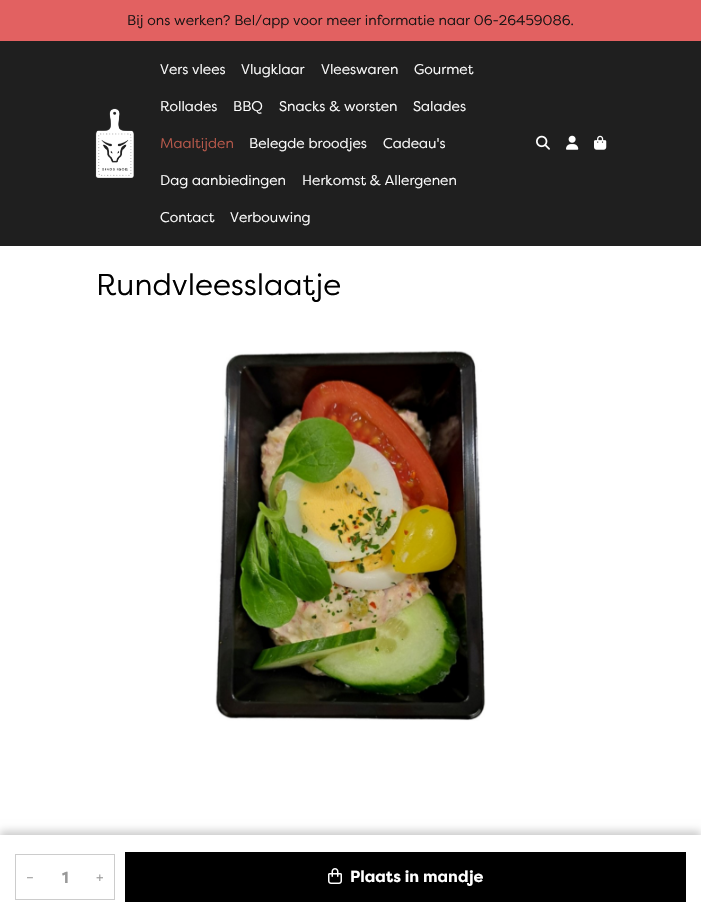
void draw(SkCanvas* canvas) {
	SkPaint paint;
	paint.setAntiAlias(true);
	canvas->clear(0xffffffff);
	paint.setColor(0xffe26161);
	canvas->drawRect(SkRect::MakeXYWH(0, 0, 701, 41), paint);
	SkFont f1(fontMgr->matchFamilyStyle("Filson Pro", SkFontStyle::Normal()), 14);
	f1.setSubpixel(true);
	paint.setColor(0xff181313);
	canvas->drawString("Bij ons werken? Bel/app voor meer informatie naar 06-26459086.", 127, 25, f1, paint);
	paint.setColor(0xff1f1f1f);
	canvas->drawRect(SkRect::MakeXYWH(0, 41, 701, 205), paint);
	canvas->drawImageRect(SkImages::DeferredFromEncodedData(SkData::MakeFromFileName("img1.png")), SkRect::MakeXYWH(95, 108, 39, 70), SkSamplingOptions());
	paint.setColor(0xffffffff);
	canvas->drawString("Vers vlees", 160, 74, f1, paint);
	canvas->drawString("Vlugklaar", 241, 74, f1, paint);
	canvas->drawString("Vleeswaren", 321, 74, f1, paint);
	canvas->drawString("Gourmet", 414, 74, f1, paint);
	canvas->drawString("Rollades", 160, 111, f1, paint);
	canvas->drawString("BBQ", 233, 111, f1, paint);
	canvas->drawString("Snacks & worsten", 279, 111, f1, paint);
	canvas->drawString("Salades", 413, 111, f1, paint);
	paint.setColor(0xffb9594b);
	canvas->drawString("Maaltijden", 160, 148, f1, paint);
	paint.setColor(0xffffffff);
	canvas->drawString("Belegde broodjes", 249, 148, f1, paint);
	canvas->drawString("Cadeau's", 383, 148, f1, paint);
	canvas->drawString("Dag aanbiedingen", 160, 185, f1, paint);
	canvas->drawString("Herkomst & Allergenen", 302, 185, f1, paint);
	canvas->drawString("Contact", 160, 222, f1, paint);
	canvas->drawString("Verbouwing", 230, 222, f1, paint);
	canvas->drawImageRect(SkImages::DeferredFromEncodedData(SkData::MakeFromFileName("img2.png")), SkRect::MakeXYWH(536, 135, 14, 15), SkSamplingOptions());
	canvas->drawImageRect(SkImages::DeferredFromEncodedData(SkData::MakeFromFileName("img3.png")), SkRect::MakeXYWH(566, 135, 13, 15), SkSamplingOptions());
	canvas->drawImageRect(SkImages::DeferredFromEncodedData(SkData::MakeFromFileName("img4.png")), SkRect::MakeXYWH(594, 135, 13, 15), SkSamplingOptions());
	SkFont f2(fontMgr->matchFamilyStyle("Filson Pro", SkFontStyle::Normal()), 30);
	f2.setSubpixel(true);
	paint.setColor(0xff000000);
	canvas->drawString("Rundvleesslaatje", 96, 295, f2, paint);
	paint.setColor(0x33000000);
	paint.setMaskFilter(SkMaskFilter::MakeBlur(kNormal_SkBlurStyle, 4));
	canvas->drawRect(SkRect::MakeXYWH(0, 831, 701, 84), paint);
	paint.setMaskFilter(nullptr);
	paint.setColor(0xffffffff);
	canvas->drawRect(SkRect::MakeXYWH(0, 835, 701, 84), paint);
	paint.setStroke(true);
	paint.setStrokeWidth(1);
	paint.setColor(0xffcccccc);
	canvas->drawRect(SkRect::MakeXYWH(15.5, 854.5, 99, 45), paint);
	paint.setStroke(false);
	paint.setColor(0xff999999);
	canvas->drawString("–", 26, 882, f1, paint);
	SkFont f3(fontMgr->matchFamilyStyle("Filson Pro", SkFontStyle::Bold()), 16);
	f3.setSubpixel(true);
	canvas->drawString("1", 62, 883, f3, paint);
	canvas->drawString("+", 96, 882, f1, paint);
	paint.setColor(0xff000000);
	canvas->drawRect(SkRect::MakeXYWH(125, 852, 561, 50), paint);
	canvas->drawImageRect(SkImages::DeferredFromEncodedData(SkData::MakeFromFileName("img5.png")), SkRect::MakeXYWH(328, 868, 14, 16), SkSamplingOptions());
	paint.setColor(0xffffffff);
	canvas->drawString("Plaats in mandje", 350, 882, f3, paint);
	canvas->drawImageRect(SkImages::DeferredFromEncodedData(SkData::MakeFromFileName("img6.png")), SkRect::MakeXYWH(215, 350, 271, 371), SkSamplingOptions());
}
